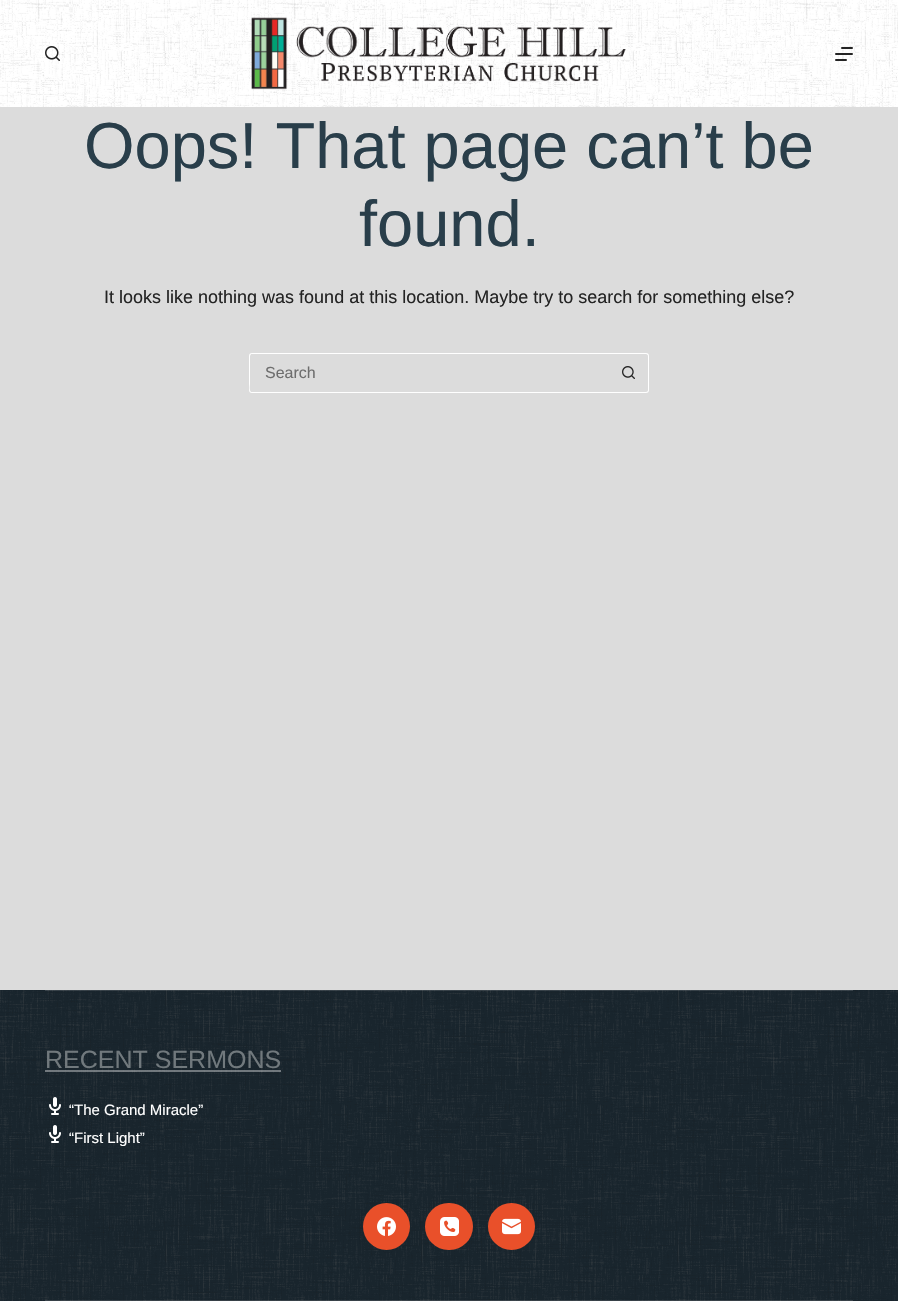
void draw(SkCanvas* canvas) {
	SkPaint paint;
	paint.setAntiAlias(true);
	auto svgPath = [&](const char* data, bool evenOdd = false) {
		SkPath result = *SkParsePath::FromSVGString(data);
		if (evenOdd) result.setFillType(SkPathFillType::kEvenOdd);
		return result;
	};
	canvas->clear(0xffdcdcdc);
	paint.setColor(0xffffffff);
	canvas->drawRect(SkRect::MakeXYWH(0, 0, 898, 107), paint);
	canvas->drawImageRect(SkImages::DeferredFromEncodedData(SkData::MakeFromFileName("img1.png")), SkRect::MakeXYWH(0, 0, 898, 107), SkSamplingOptions());
	canvas->drawImageRect(SkImages::DeferredFromEncodedData(SkData::MakeFromFileName("img2.png")), SkRect::MakeXYWH(45, 46, 15, 15), SkSamplingOptions());
	canvas->drawImageRect(SkImages::DeferredFromEncodedData(SkData::MakeFromFileName("img3.png")), SkRect::MakeXYWH(251, 17, 375, 73), SkSamplingOptions());
	paint.setColor(0xff242424);
	canvas->drawRoundRect(SkRect::MakeXYWH(841, 47, 12, 2), 1, 1, paint);
	canvas->drawRoundRect(SkRect::MakeXYWH(835, 53, 18, 2), 1, 1, paint);
	canvas->drawRoundRect(SkRect::MakeXYWH(835, 59, 12, 2), 1, 1, paint);
	SkFont f1(fontMgr->matchFamilyStyle("Liberation Sans", SkFontStyle::Normal()), 65);
	f1.setSubpixel(true);
	paint.setColor(0xff293e4a);
	canvas->drawString("Oops! That page can’t be", 84, 168, f1, paint);
	canvas->drawString("found.", 359, 246, f1, paint);
	SkFont f2(fontMgr->matchFamilyStyle("Liberation Sans", SkFontStyle::Normal()), 18);
	f2.setSubpixel(true);
	paint.setColor(0xff242424);
	canvas->drawString("It looks like nothing was found at this location. Maybe try to search for something else?", 104, 303, f2, paint);
	paint.setColor(0xffffffff);
	canvas->drawPath(svgPath("M252 353H609V393H252C250 393 249 392 249 390V356C249 354 250 353 252 353ZM252 354H609V392H251C249 390 250 385 250 384V356L251 354Z", true), paint);
	SkFont f3(fontMgr->matchFamilyStyle("Liberation Sans", SkFontStyle::Normal()), 16);
	f3.setSubpixel(true);
	paint.setColor(0xff6e6e6e);
	canvas->drawString("Search", 265, 378, f3, paint);
	paint.setColor(0xffffffff);
	canvas->drawPath(svgPath("M609 353H646C648 353 649 354 649 356V390C649 392 648 393 646 393H609ZM609 354H646C647 354 648 355 648 356V390C648 391 647 392 646 392H609Z", true), paint);
	canvas->drawImageRect(SkImages::DeferredFromEncodedData(SkData::MakeFromFileName("img4.png")), SkRect::MakeXYWH(622, 366, 13, 13), SkSamplingOptions());
	paint.setColor(0xff19252d);
	canvas->drawRect(SkRect::MakeXYWH(0, 990, 898, 311), paint);
	canvas->drawImageRect(SkImages::DeferredFromEncodedData(SkData::MakeFromFileName("img5.png")), SkRect::MakeXYWH(0, 990, 898, 311), SkSamplingOptions());
	paint.setColor(0x26dddddd);
	canvas->drawRect(SkRect::MakeXYWH(45, 990, 808, 1), paint);
	canvas->drawRect(SkRect::MakeXYWH(45, 1300, 808, 1), paint);
	SkFont f4(fontMgr->matchFamilyStyle("Liberation Sans", SkFontStyle::Normal()), 25);
	f4.setSubpixel(true);
	paint.setColor(0xff71797d);
	canvas->drawString("RECENT SERMONS", 45, 1068, f4, paint);
	paint.setColor(0x61ffffff);
	canvas->drawRect(SkRect::MakeXYWH(45, 1070, 236, 2), paint);
	canvas->drawImageRect(SkImages::DeferredFromEncodedData(SkData::MakeFromFileName("img6.png")), SkRect::MakeXYWH(49, 1097, 12, 18), SkSamplingOptions());
	SkFont f5(fontMgr->matchFamilyStyle("Liberation Sans", SkFontStyle::Normal()), 15);
	f5.setSubpixel(true);
	paint.setColor(0xffffffff);
	canvas->drawString("“The Grand Miracle”", 69, 1115, f5, paint);
	canvas->drawImageRect(SkImages::DeferredFromEncodedData(SkData::MakeFromFileName("img7.png")), SkRect::MakeXYWH(49, 1125, 12, 18), SkSamplingOptions());
	canvas->drawString("“First Light”", 69, 1143, f5, paint);
	paint.setColor(0xffe9502a);
	canvas->drawCircle(386.5, 1226.5, 23.5, paint);
	canvas->drawImageRect(SkImages::DeferredFromEncodedData(SkData::MakeFromFileName("img8.png")), SkRect::MakeXYWH(377, 1217, 19, 19), SkSamplingOptions());
	canvas->drawRoundRect(SkRect::MakeXYWH(425, 1203, 48, 47), 23.5, 23.5, paint);
	canvas->drawImageRect(SkImages::DeferredFromEncodedData(SkData::MakeFromFileName("img9.png")), SkRect::MakeXYWH(440, 1217, 19, 19), SkSamplingOptions());
	canvas->drawCircle(511.5, 1226.5, 23.5, paint);
	canvas->drawImageRect(SkImages::DeferredFromEncodedData(SkData::MakeFromFileName("img10.png")), SkRect::MakeXYWH(502, 1218, 19, 17), SkSamplingOptions());
}
